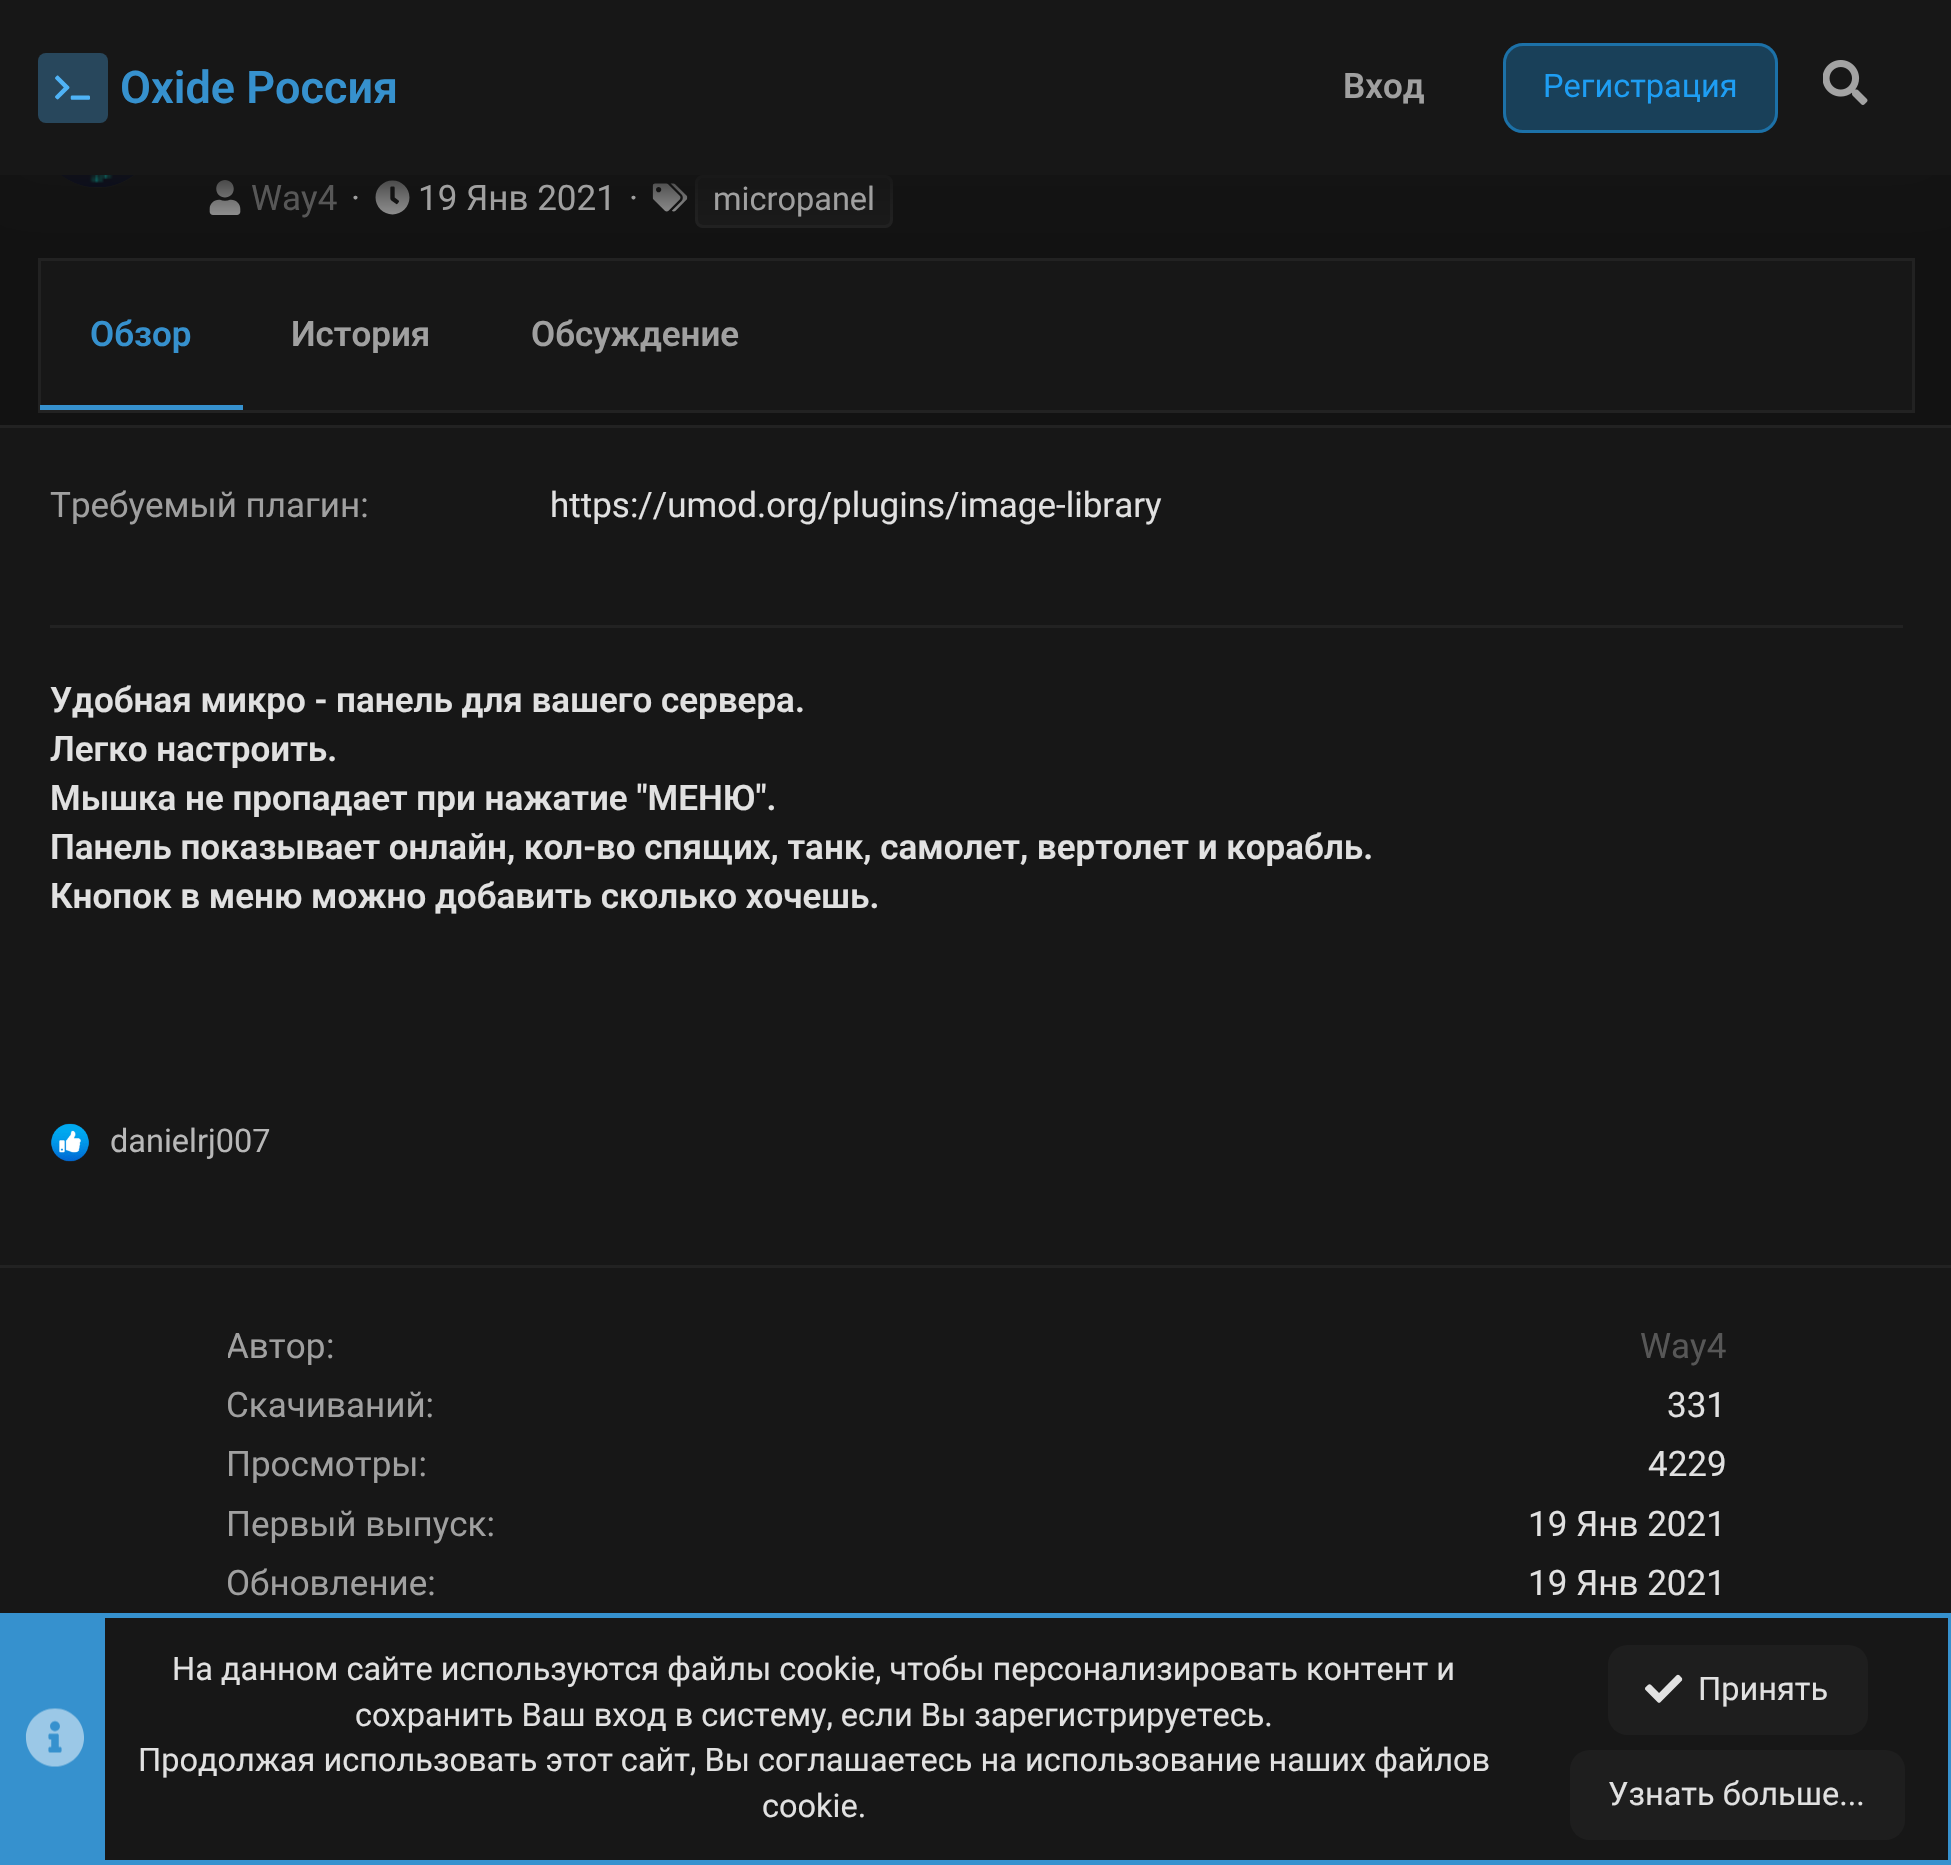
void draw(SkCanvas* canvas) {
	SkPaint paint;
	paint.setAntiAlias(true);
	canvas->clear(0xff121212);
	paint.setColor(0xff171717);
	canvas->drawCircle(98, 128, 60, paint);
	canvas->drawImageRect(SkImages::DeferredFromEncodedData(SkData::MakeFromFileName("img3.png")), SkRect::MakeXYWH(61, 175, 73, 12), SkSamplingOptions());
	canvas->drawImageRect(SkImages::DeferredFromEncodedData(SkData::MakeFromFileName("img4.png")), SkRect::MakeXYWH(209, 180, 32, 35), SkSamplingOptions());
	canvas->drawImageRect(SkImages::DeferredFromEncodedData(SkData::MakeFromFileName("img5.png")), SkRect::MakeXYWH(375, 180, 35, 35), SkSamplingOptions());
	canvas->drawImageRect(SkImages::DeferredFromEncodedData(SkData::MakeFromFileName("img6.png")), SkRect::MakeXYWH(652, 183, 36, 29), SkSamplingOptions());
	paint.setColor(0xff1a1a1a);
	canvas->drawRoundRect(SkRect::MakeXYWH(696.5, 176.5, 195, 50), 6.5, 6.5, paint);
	paint.setStroke(true);
	paint.setStrokeWidth(3);
	paint.setColor(0xff222222);
	canvas->drawRoundRect(SkRect::MakeXYWH(696.5, 176.5, 195, 50), 6.5, 6.5, paint);
	paint.setStroke(false);
	paint.setColor(0xff171717);
	canvas->drawRect(SkRect::MakeXYWH(39.5, 259.5, 1874, 152), paint);
	paint.setStroke(true);
	paint.setColor(0xff222222);
	canvas->drawRect(SkRect::MakeXYWH(39.5, 259.5, 1874, 152), paint);
	paint.setStroke(false);
	paint.setColor(0xff141414);
	paint.setMaskFilter(SkMaskFilter::MakeBlur(kNormal_SkBlurStyle, 25));
	canvas->drawRect(SkRect::MakeXYWH(0, 13, 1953, 175), paint);
	paint.setMaskFilter(nullptr);
	paint.setColor(0xff171717);
	canvas->drawRect(SkRect::MakeXYWH(0, 0, 1951, 175), paint);
	paint.setColor(0xff28475c);
	canvas->drawRoundRect(SkRect::MakeXYWH(38, 53, 70, 70), 8, 8, paint);
	canvas->drawImageRect(SkImages::DeferredFromEncodedData(SkData::MakeFromFileName("img1.png")), SkRect::MakeXYWH(55, 75, 35, 25), SkSamplingOptions());
	SkFont f1(fontMgr->matchFamilyStyle("Roboto", SkFontStyle(600, SkFontStyle::kNormal_Width, SkFontStyle::kUpright_Slant)), 45);
	f1.setSubpixel(true);
	paint.setColor(0xff3691ce);
	canvas->drawString("Oxide Россия", 120, 103, f1, paint);
	SkFont f2(fontMgr->matchFamilyStyle("Roboto", SkFontStyle(600, SkFontStyle::kNormal_Width, SkFontStyle::kUpright_Slant)), 35);
	f2.setSubpixel(true);
	paint.setColor(0xffa0a0a0);
	canvas->drawString("Вход", 1343, 98, f2, paint);
	paint.setColor(0xff194059);
	canvas->drawRoundRect(SkRect::MakeXYWH(1503, 43, 275, 90), 20, 20, paint);
	paint.setStroke(true);
	paint.setColor(0x821e9ef4);
	canvas->drawRoundRect(SkRect::MakeXYWH(1504.5, 44.5, 272, 87), 18.5, 18.5, paint);
	SkFont f3(fontMgr->matchFamilyStyle("Roboto", SkFontStyle::Normal()), 32.5);
	f3.setSubpixel(true);
	paint.setStroke(false);
	paint.setColor(0xff1e9ef4);
	canvas->drawString("Регистрация", 1543, 97, f3, paint);
	canvas->drawImageRect(SkImages::DeferredFromEncodedData(SkData::MakeFromFileName("img2.png")), SkRect::MakeXYWH(1823, 60, 45, 45), SkSamplingOptions());
	SkFont f4(fontMgr->matchFamilyStyle("Roboto", SkFontStyle::Normal()), 35);
	f4.setSubpixel(true);
	paint.setColor(0xff575757);
	canvas->drawString("Way4", 251, 210, f4, paint);
	paint.setColor(0xffa0a0a0);
	canvas->drawString("·", 351, 210, f4, paint);
	canvas->drawString("19 Янв 2021", 418, 210, f4, paint);
	canvas->drawString("·", 629, 210, f4, paint);
	canvas->drawString("micropanel", 713, 210, f3, paint);
	paint.setColor(0xff3691ce);
	canvas->drawRect(SkRect::MakeXYWH(40, 405, 203, 5), paint);
	canvas->drawString("Обзор", 90, 346, f2, paint);
	paint.setColor(0xffa0a0a0);
	canvas->drawString("История", 291, 346, f2, paint);
	canvas->drawString("Обсуждение", 531, 346, f2, paint);
	paint.setColor(0xff171717);
	canvas->drawRect(SkRect::MakeXYWH(0, 428, 1951, 1185), paint);
	paint.setColor(0xff222222);
	canvas->drawRect(SkRect::MakeXYWH(0, 425, 1951, 3), paint);
	canvas->drawRect(SkRect::MakeXYWH(50, 625, 1853, 3), paint);
	paint.setColor(0xffa0a0a0);
	canvas->drawString("Требуемый плагин:", 50, 517, f4, paint);
	paint.setColor(0xffe1e1e1);
	canvas->drawString("https://umod.org/plugins/image-library", 550, 517, f4, paint);
	canvas->drawString("Удобная микро - панель для вашего сервера.", 50, 712, f2, paint);
	canvas->drawString("Легко настроить.", 50, 761, f2, paint);
	canvas->drawString("Мышка не пропадает при нажатие \"МЕНЮ\".", 50, 810, f2, paint);
	canvas->drawString("Панель показывает онлайн, кол-во спящих, танк, самолет, вертолет и корабль.", 50, 859, f2, paint);
	canvas->drawString("Кнопок в меню можно добавить сколько хочешь.", 50, 908, f2, paint);
	canvas->drawImageRect(SkImages::DeferredFromEncodedData(SkData::MakeFromFileName("img7.png")), SkRect::MakeXYWH(51, 1123, 38, 39), SkSamplingOptions());
	paint.setColor(0xffb8b8b8);
	canvas->drawString("danielrj007", 110, 1152, f3, paint);
	paint.setColor(0xff222222);
	canvas->drawRect(SkRect::MakeXYWH(0, 1265, 1951, 3), paint);
	canvas->save();
	canvas->clipRect(SkRect::MakeXYWH(228, 1318, 1500, 60));
	paint.setColor(0xffa0a0a0);
	canvas->drawString("Автор", 226, 1358, f4, paint);
	canvas->restore();
	canvas->drawString(":", 326, 1358, f4, paint);
	paint.setColor(0xff575757);
	canvas->drawString("Way4", 1640, 1358, f4, paint);
	paint.setColor(0xffa0a0a0);
	canvas->drawString("Скачиваний:", 226, 1417, f4, paint);
	paint.setColor(0xffe1e1e1);
	canvas->drawString("331", 1667, 1417, f4, paint);
	paint.setColor(0xffa0a0a0);
	canvas->drawString("Просмотры:", 226, 1476, f4, paint);
	paint.setColor(0xffe1e1e1);
	canvas->drawString("4229", 1648, 1476, f4, paint);
	paint.setColor(0xffa0a0a0);
	canvas->drawString("Первый выпуск:", 226, 1536, f4, paint);
	paint.setColor(0xffe1e1e1);
	canvas->drawString("19 Янв 2021", 1528, 1536, f4, paint);
	paint.setColor(0xffa0a0a0);
	canvas->drawString("Обновление:", 226, 1595, f4, paint);
	paint.setColor(0xffe1e1e1);
	canvas->drawString("19 Янв 2021", 1528, 1595, f4, paint);
	paint.setColor(0xff171717);
	canvas->drawRect(SkRect::MakeXYWH(105, 1618, 1843, 242), paint);
	paint.setStroke(true);
	paint.setStrokeWidth(5);
	paint.setColor(0xff3691ce);
	canvas->drawRect(SkRect::MakeXYWH(2.5, 1615.5, 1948, 247), paint);
	paint.setStroke(false);
	canvas->drawRect(SkRect::MakeXYWH(5, 1618, 100, 242), paint);
	canvas->drawImageRect(SkImages::DeferredFromEncodedData(SkData::MakeFromFileName("img8.png")), SkRect::MakeXYWH(25, 1708, 59, 59), SkSamplingOptions());
	paint.setColor(0xffe1e1e1);
	canvas->drawString("На данном сайте используются файлы cookie, чтобы персонализировать контент и", 172, 1680, f3, paint);
	canvas->drawString("сохранить Ваш вход в систему, если Вы зарегистрируетесь.", 355, 1726, f3, paint);
	canvas->drawString("Продолжая использовать этот сайт, Вы соглашаетесь на использование наших файлов", 138, 1771, f3, paint);
	canvas->drawString("cookie.", 762, 1817, f3, paint);
	paint.setColor(0xff1e1e1e);
	canvas->drawRoundRect(SkRect::MakeXYWH(1608, 1645, 260, 90), 20, 20, paint);
	canvas->drawImageRect(SkImages::DeferredFromEncodedData(SkData::MakeFromFileName("img9.png")), SkRect::MakeXYWH(1645, 1674, 38, 29), SkSamplingOptions());
	paint.setColor(0xffe1e1e1);
	canvas->drawString("Принять", 1698, 1700, f3, paint);
	paint.setColor(0xff1e1e1e);
	canvas->drawRoundRect(SkRect::MakeXYWH(1570, 1750, 335, 90), 20, 20, paint);
	paint.setColor(0xffe1e1e1);
	canvas->drawString("Узнать больше...", 1608, 1805, f3, paint);
}
